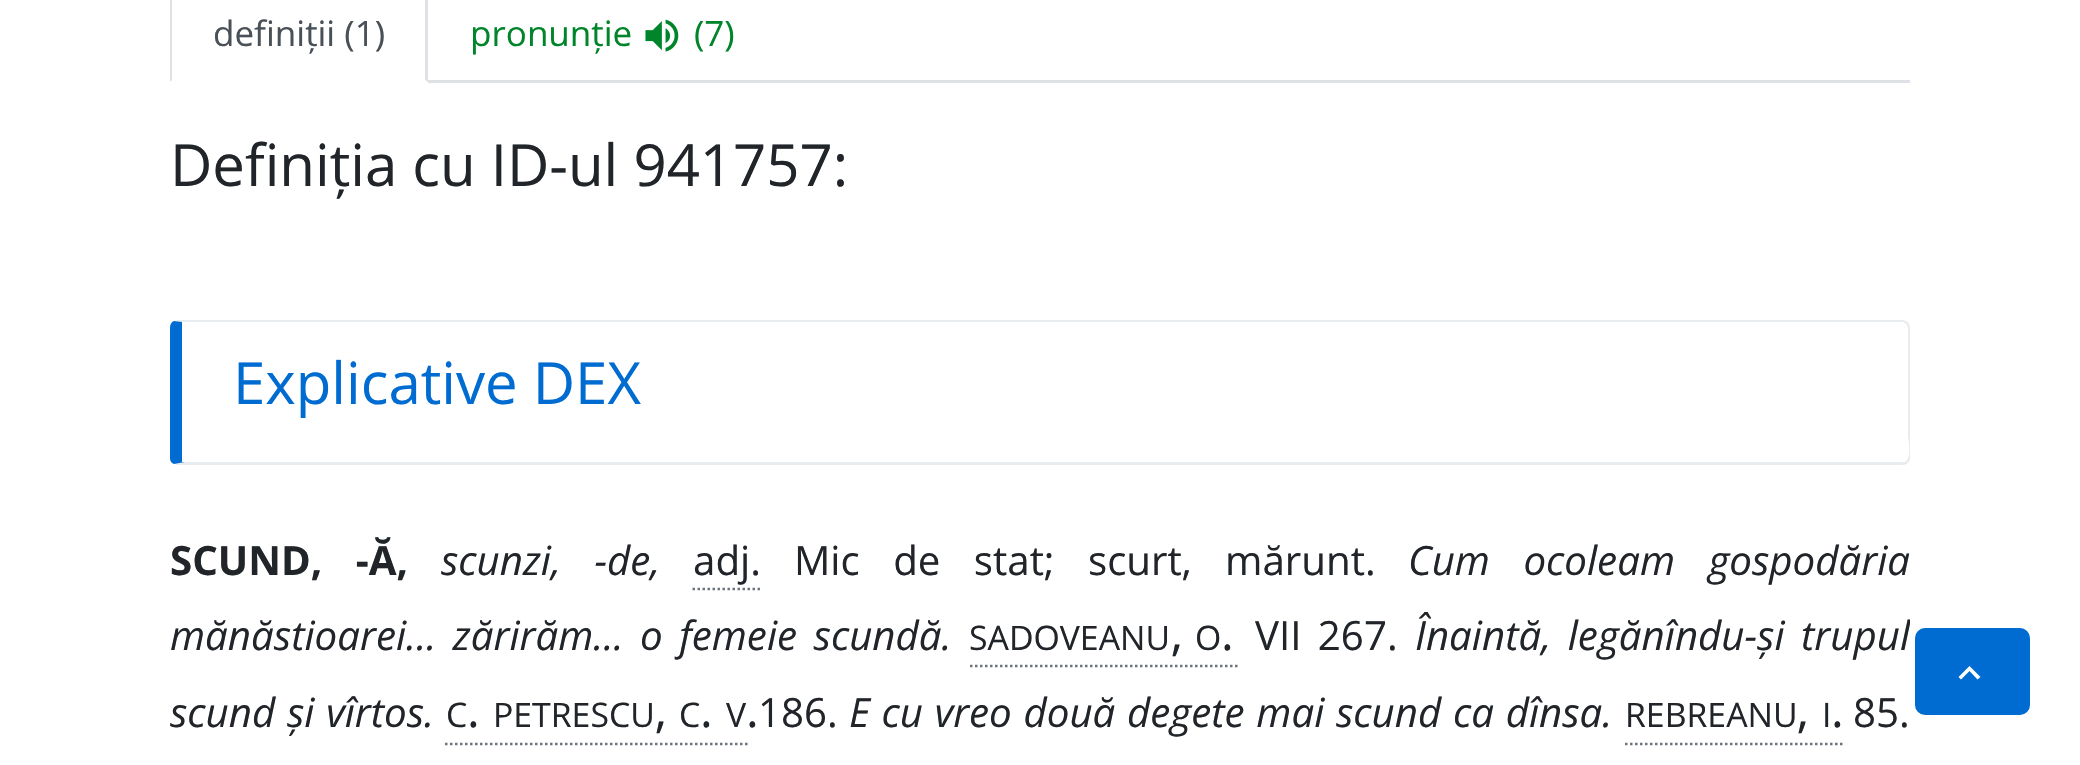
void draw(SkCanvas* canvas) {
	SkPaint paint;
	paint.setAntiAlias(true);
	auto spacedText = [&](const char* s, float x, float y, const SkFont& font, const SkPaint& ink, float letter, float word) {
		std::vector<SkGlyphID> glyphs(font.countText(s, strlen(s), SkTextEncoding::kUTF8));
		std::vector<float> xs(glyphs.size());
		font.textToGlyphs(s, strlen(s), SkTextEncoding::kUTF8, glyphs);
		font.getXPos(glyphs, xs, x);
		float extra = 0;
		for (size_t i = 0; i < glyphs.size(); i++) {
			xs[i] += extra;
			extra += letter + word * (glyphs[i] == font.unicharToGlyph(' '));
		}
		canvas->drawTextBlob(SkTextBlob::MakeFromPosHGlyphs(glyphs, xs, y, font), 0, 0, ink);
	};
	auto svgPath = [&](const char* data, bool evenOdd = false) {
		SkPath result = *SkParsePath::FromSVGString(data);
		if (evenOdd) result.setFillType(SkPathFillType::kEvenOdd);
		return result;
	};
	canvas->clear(0xffffffff);
	paint.setColor(0xffdee2e6);
	canvas->drawRect(SkRect::MakeXYWH(428, 80, 1482, 3), paint);
	canvas->drawPath(svgPath("M428 82L425 80V-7L423-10L425-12L428-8Z"), paint);
	paint.setColor(0xffffffff);
	canvas->drawPath(svgPath("M427 82H170L172 80H425Z"), paint);
	paint.setColor(0xffdee2e6);
	canvas->drawPath(svgPath("M170-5V82L172 80V-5C172-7 173-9 175-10L173-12C171-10 170-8 170-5Z"), paint);
	SkFont f1(fontMgr->matchFamilyStyle("Open Sans", SkFontStyle::Normal()), 35);
	f1.setSubpixel(true);
	paint.setColor(0xff495057);
	canvas->drawString("definiții (1)", 213, 46, f1, paint);
	paint.setColor(0xff00852a);
	canvas->drawString("pronunție", 470, 46, f1, paint);
	canvas->drawImageRect(SkImages::DeferredFromEncodedData(SkData::MakeFromFileName("img1.png")), SkRect::MakeXYWH(645, 19, 34, 33), SkSamplingOptions());
	canvas->drawString("(7)", 694, 46, f1, paint);
	SkFont f2(fontMgr->matchFamilyStyle("Open Sans", SkFontStyle::Normal()), 58.1);
	f2.setSubpixel(true);
	paint.setColor(0xff212529);
	canvas->drawString("Definiția cu ID-ul 941757:", 170, 186, f2, paint);
	paint.setColor(0xffe9ecef);
	canvas->drawPath(svgPath("M178 320L174 321L182 322H1902C1904 322 1905 323 1906 324L1908 322C1906 321 1904 320 1902 320Z"), paint);
	canvas->drawPath(svgPath("M1910 458V328C1910 326 1909 324 1908 322L1906 324L1908 327V436C1908 438 1912 457 1906 461L1908 463C1909 462 1910 460 1910 458Z"), paint);
	canvas->drawPath(svgPath("M178 465H1902C1905 465 1907 464 1908 463L1906 461C1905 462 1903 462 1902 462H185L174 464Z"), paint);
	paint.setColor(0xff006cd1);
	canvas->drawPath(svgPath("M170 328V458C170 461 171 463 174 464L185 462H182V322L174 321C171 322 170 325 170 328Z"), paint);
	canvas->drawString("Explicative DEX", 233, 404, f2, paint);
	SkFont f3(fontMgr->matchFamilyStyle("Open Sans", SkFontStyle::Bold()), 40.25);
	f3.setSubpixel(true);
	paint.setColor(0xff212529);
	spacedText("SCUND, -Ă,", 170, 575, f3, paint, 0, 23);
	SkFont f4(fontMgr->matchFamilyStyle("Open Sans", SkFontStyle::Italic()), 40.25);
	f4.setSubpixel(true);
	spacedText("scunzi, -de,", 441, 575, f4, paint, 0, 23);
	SkFont f5(fontMgr->matchFamilyStyle("Open Sans", SkFontStyle::Normal()), 40.25);
	f5.setSubpixel(true);
	canvas->drawString("adj.", 693, 575, f5, paint);
	paint.setStroke(true);
	paint.setStrokeWidth(2.5);
	paint.setColor(0xff6c757d);
	paint.setPathEffect(SkDashPathEffect::Make({{2.5f, 2.5f}}, 0));
	canvas->drawPath(svgPath("M692.5 589H760"), paint);
	paint.setPathEffect(nullptr);
	paint.setStroke(false);
	paint.setColor(0xff212529);
	spacedText("Mic de stat; scurt, mărunt.", 794, 575, f5, paint, 0, 23);
	spacedText("Cum ocoleam gospodăria", 1408, 575, f4, paint, 0, 23);
	spacedText("mănăstioarei... zărirăm... o femeie scundă.", 170, 650, f4, paint, 0, 6);
	SkFont f6(fontMgr->matchFamilyStyle("Open Sans", SkFontStyle::Normal()), 33.75);
	f6.setSubpixel(true);
	canvas->drawString("SADOVEANU", 969, 650, f6, paint);
	SkFont f7(fontMgr->matchFamilyStyle("Open Sans", SkFontStyle::Normal()), 48);
	f7.setSubpixel(true);
	canvas->drawString(",", 1171, 650, f7, paint);
	paint.setStroke(true);
	paint.setColor(0xff6c757d);
	paint.setPathEffect(SkDashPathEffect::Make({{2.5f, 2.5f}}, 0));
	canvas->drawPath(svgPath("M970 666H1237.5"), paint);
	paint.setPathEffect(nullptr);
	paint.setStroke(false);
	paint.setColor(0xff212529);
	canvas->drawString("O", 1195, 650, f6, paint);
	canvas->drawString(".", 1221, 650, f7, paint);
	spacedText("VII 267.", 1255, 650, f5, paint, 0, 6);
	canvas->save();
	canvas->clipRect(SkRect::MakeXYWH(170, 530, 1740, 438));
	spacedText("Înaintă, legănîndu-și trupul", 1415, 650, f4, paint, 0, 6);
	canvas->restore();
	spacedText("scund și vîrtos.", 170, 727, f4, paint, 0, 1.25);
	canvas->drawString("C", 446, 727, f6, paint);
	canvas->drawString(".", 467, 727, f7, paint);
	canvas->drawString("PETRESCU", 493, 727, f6, paint);
	canvas->drawString(",", 655, 727, f7, paint);
	paint.setStroke(true);
	paint.setColor(0xff6c757d);
	paint.setPathEffect(SkDashPathEffect::Make({{2.5f, 2.5f}}, 0));
	canvas->drawPath(svgPath("M445 744H747.5"), paint);
	paint.setPathEffect(nullptr);
	paint.setStroke(false);
	paint.setColor(0xff212529);
	canvas->drawString("C", 679, 727, f6, paint);
	canvas->drawString(".", 700, 727, f7, paint);
	canvas->drawString("V", 726, 727, f6, paint);
	canvas->drawString(".", 746, 727, f7, paint);
	canvas->drawString("186.", 758, 727, f5, paint);
	spacedText("E cu vreo două degete mai scund ca dînsa.", 849, 727, f4, paint, 0, 1.25);
	canvas->drawString("REBREANU", 1625, 727, f6, paint);
	canvas->drawString(",", 1797, 727, f7, paint);
	paint.setStroke(true);
	paint.setColor(0xff6c757d);
	paint.setPathEffect(SkDashPathEffect::Make({{2.5f, 2.5f}}, 0));
	canvas->drawPath(svgPath("M1625 744H1842.5"), paint);
	paint.setPathEffect(nullptr);
	paint.setStroke(false);
	paint.setColor(0xff212529);
	canvas->drawString("I", 1822, 727, f6, paint);
	canvas->drawString(".", 1831, 727, f7, paint);
	canvas->drawString("85.", 1853, 727, f5, paint);
	paint.setColor(0xff006cd1);
	canvas->drawRoundRect(SkRect::MakeXYWH(1916.5, 629.5, 112, 84), 8.5, 8.5, paint);
	paint.setStroke(true);
	paint.setStrokeWidth(3);
	canvas->drawRoundRect(SkRect::MakeXYWH(1916.5, 629.5, 112, 84), 8.5, 8.5, paint);
	paint.setStroke(false);
	paint.setColor(0xffffffff);
	canvas->drawPath(svgPath("M1969.5 666L1980.5 677L1977.5 679.5L1969.5 671L1961 679.5L1958.5 677Z"), paint);
}
